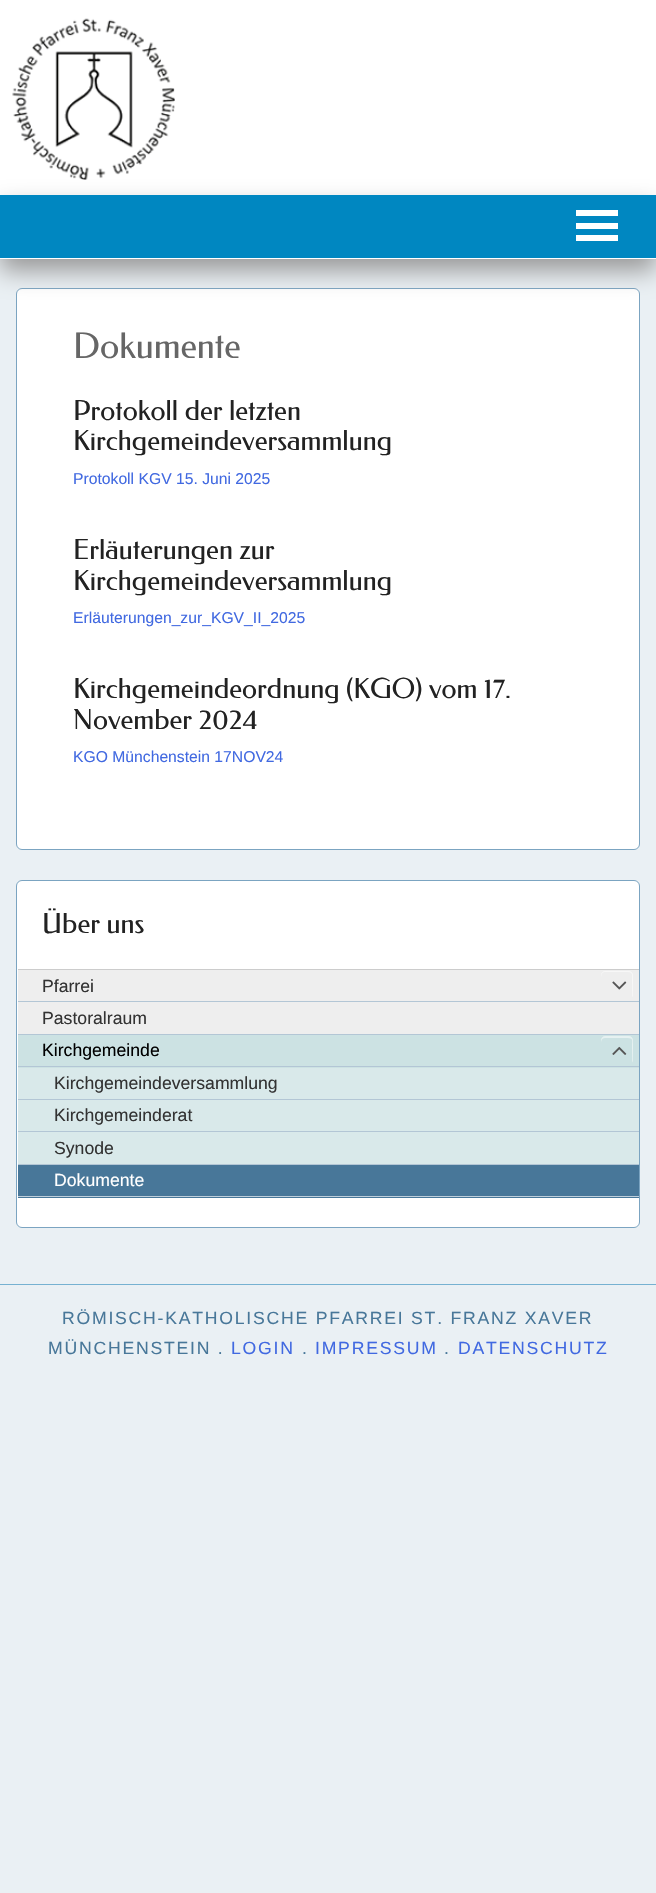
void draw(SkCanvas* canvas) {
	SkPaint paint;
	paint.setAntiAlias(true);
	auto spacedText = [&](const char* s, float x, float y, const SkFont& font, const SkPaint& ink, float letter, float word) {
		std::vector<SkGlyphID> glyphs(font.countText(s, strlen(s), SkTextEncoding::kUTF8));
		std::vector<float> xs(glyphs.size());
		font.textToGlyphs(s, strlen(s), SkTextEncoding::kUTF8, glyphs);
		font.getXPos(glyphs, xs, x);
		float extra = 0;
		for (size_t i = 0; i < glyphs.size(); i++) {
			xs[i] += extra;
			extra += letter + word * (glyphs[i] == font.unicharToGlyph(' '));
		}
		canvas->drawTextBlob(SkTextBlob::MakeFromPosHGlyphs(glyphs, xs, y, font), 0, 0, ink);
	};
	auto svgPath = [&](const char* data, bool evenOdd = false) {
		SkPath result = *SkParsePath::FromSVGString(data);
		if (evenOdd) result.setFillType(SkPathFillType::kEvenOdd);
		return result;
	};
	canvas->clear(0xffeaf0f4);
	paint.setColor(0xffffffff);
	canvas->drawRect(SkRect::MakeXYWH(0, 0, 656, 195), paint);
	canvas->drawImageRect(SkImages::DeferredFromEncodedData(SkData::MakeFromFileName("img1.png")), SkRect::MakeXYWH(12, 18, 163, 162), SkSamplingOptions());
	canvas->drawRoundRect(SkRect::MakeXYWH(16.5, 288.5, 623, 561), 5.5, 5.5, paint);
	paint.setStroke(true);
	paint.setStrokeWidth(1);
	paint.setColor(0xff7ba4c1);
	canvas->drawRoundRect(SkRect::MakeXYWH(16.5, 288.5, 623, 561), 5.5, 5.5, paint);
	paint.setStroke(false);
	paint.setColor(0xff999999);
	paint.setMaskFilter(SkMaskFilter::MakeBlur(kNormal_SkBlurStyle, 12.5));
	canvas->drawRect(SkRect::MakeXYWH(0, 208, 656, 63), paint);
	paint.setMaskFilter(nullptr);
	paint.setColor(0xff0087c1);
	canvas->drawRect(SkRect::MakeXYWH(0, 195, 656, 63), paint);
	paint.setColor(0xffffffff);
	canvas->drawRect(SkRect::MakeXYWH(0, 258, 656, 1), paint);
	canvas->drawRect(SkRect::MakeXYWH(576, 210, 42, 6), paint);
	canvas->drawRect(SkRect::MakeXYWH(576, 223, 42, 6), paint);
	canvas->drawRect(SkRect::MakeXYWH(576, 235, 42, 6), paint);
	SkFont f1(fontMgr->matchFamilyStyle("Federo", SkFontStyle::Normal()), 35.25);
	f1.setSubpixel(true);
	paint.setColor(0xff666666);
	canvas->drawString("Dokumente", 73, 358, f1, paint);
	SkFont f2(fontMgr->matchFamilyStyle("Federo", SkFontStyle::Normal()), 27.5);
	f2.setSubpixel(true);
	paint.setColor(0xff222222);
	canvas->drawString("Protokoll der letzten", 73, 420, f2, paint);
	canvas->drawString("Kirchgemeindeversammlung", 73, 450, f2, paint);
	SkFont f3(fontMgr->matchFamilyStyle("Liberation Sans", SkFontStyle::Normal()), 15.7);
	f3.setSubpixel(true);
	paint.setColor(0xff4169e1);
	canvas->drawString("Protokoll KGV 15. Juni 2025", 73, 484, f3, paint);
	paint.setColor(0xff222222);
	canvas->drawString("Erläuterungen zur", 73, 559, f2, paint);
	canvas->drawString("Kirchgemeindeversammlung", 73, 590, f2, paint);
	paint.setColor(0xff4169e1);
	canvas->drawString("Erläuterungen_zur_KGV_II_2025", 73, 623, f3, paint);
	paint.setColor(0xff222222);
	canvas->drawString("Kirchgemeindeordnung (KGO) vom 17.", 73, 698, f2, paint);
	canvas->drawString("November 2024", 73, 729, f2, paint);
	paint.setColor(0xff4169e1);
	canvas->drawString("KGO Münchenstein 17NOV24", 73, 762, f3, paint);
	paint.setColor(0xffffffff);
	canvas->drawRoundRect(SkRect::MakeXYWH(16.5, 880.5, 623, 347), 5.5, 5.5, paint);
	paint.setStroke(true);
	paint.setColor(0xff7ba4c1);
	canvas->drawRoundRect(SkRect::MakeXYWH(16.5, 880.5, 623, 347), 5.5, 5.5, paint);
	paint.setStroke(false);
	paint.setColor(0xff222222);
	canvas->drawString("Über uns", 42, 933, f2, paint);
	paint.setColor(0xffcccccc);
	canvas->drawRect(SkRect::MakeXYWH(18, 969, 621, 1), paint);
	paint.setColor(0xffeeeeee);
	canvas->drawRect(SkRect::MakeXYWH(18, 970, 621, 64), paint);
	paint.setColor(0xffb3c6d5);
	canvas->drawRect(SkRect::MakeXYWH(18, 1001, 621, 1), paint);
	SkFont f4(fontMgr->matchFamilyStyle("Liberation Sans", SkFontStyle::Normal()), 17.65);
	f4.setSubpixel(true);
	paint.setColor(0xff333333);
	canvas->drawString("Pfarrei", 42, 992, f4, paint);
	paint.setColor(0xfff7f7f7);
	canvas->drawPath(svgPath("M605 972H625C632.5 972 632.5 973.5 632 979V983C632 991 632.5 995 632 997.5C632.5 997 633 996 633 995V975C633 973 631 971 629 971H605C603 971 601 973 601 975V980C601 977 601 972 605 972ZM601 996V993Z", true), paint);
	canvas->drawImageRect(SkImages::DeferredFromEncodedData(SkData::MakeFromFileName("img2.png")), SkRect::MakeXYWH(612, 981, 15, 9), SkSamplingOptions());
	paint.setColor(0xffb3c6d5);
	canvas->drawRect(SkRect::MakeXYWH(18, 1034, 621, 1), paint);
	paint.setColor(0xff333333);
	canvas->drawString("Pastoralraum", 42, 1024, f4, paint);
	paint.setColor(0xffcce2e3);
	canvas->drawRect(SkRect::MakeXYWH(18, 1035, 621, 33), paint);
	paint.setColor(0xffb3c6d5);
	canvas->drawRect(SkRect::MakeXYWH(18, 1066, 621, 1), paint);
	paint.setColor(0xff000000);
	canvas->drawString("Kirchgemeinde", 42, 1056, f4, paint);
	paint.setColor(0xffe6f1f1);
	canvas->drawPath(svgPath("M605 1038H625C632.5 1038 632.5 1038.5 632 1044V1048C632 1056 632.5 1060 632 1062.5C632.5 1062 633 1061 633 1060V1040C633 1038 631 1036 629 1036H605C603 1036 601 1038 601 1040V1045C601 1042 601 1038 605 1038ZM601 1061V1058Z", true), paint);
	canvas->drawImageRect(SkImages::DeferredFromEncodedData(SkData::MakeFromFileName("img3.png")), SkRect::MakeXYWH(612, 1046, 15, 9), SkSamplingOptions());
	paint.setColor(0xffd9e9ea);
	canvas->drawRect(SkRect::MakeXYWH(18, 1068, 621, 96), paint);
	paint.setColor(0xffb3c6d5);
	canvas->drawRect(SkRect::MakeXYWH(18, 1099, 621, 1), paint);
	paint.setColor(0xff333333);
	canvas->drawString("Kirchgemeindeversammlung", 54, 1089, f4, paint);
	paint.setColor(0xffb3c6d5);
	canvas->drawRect(SkRect::MakeXYWH(18, 1131, 621, 1), paint);
	paint.setColor(0xff333333);
	canvas->drawString("Kirchgemeinderat", 54, 1121, f4, paint);
	paint.setColor(0xffb3c6d5);
	canvas->drawRect(SkRect::MakeXYWH(18, 1164, 621, 1), paint);
	paint.setColor(0xff333333);
	canvas->drawString("Synode", 54, 1154, f4, paint);
	paint.setColor(0xff487799);
	canvas->drawRect(SkRect::MakeXYWH(18, 1165, 621, 33), paint);
	paint.setColor(0xffbfcfdb);
	canvas->drawRect(SkRect::MakeXYWH(18, 1196, 621, 1), paint);
	paint.setColor(0xffffffff);
	canvas->drawString("Dokumente", 54, 1186, f4, paint);
	paint.setColor(0xff76b1d1);
	canvas->drawRect(SkRect::MakeXYWH(0, 1284, 656, 1), paint);
	paint.setColor(0xff487799);
	spacedText("RÖMISCH-KATHOLISCHE PFARREI ST. FRANZ XAVER", 62, 1324, f4, paint, 1.75, 0);
	spacedText("MÜNCHENSTEIN .", 48, 1354, f4, paint, 1.75, 0);
	paint.setColor(0xff4169e1);
	spacedText("LOGIN", 231, 1354, f4, paint, 1.75, 0);
	paint.setColor(0xff487799);
	spacedText(".", 302, 1354, f4, paint, 1.75, 0);
	paint.setColor(0xff4169e1);
	spacedText("IMPRESSUM", 315, 1354, f4, paint, 1.75, 0);
	paint.setColor(0xff487799);
	spacedText(".", 444, 1354, f4, paint, 1.75, 0);
	paint.setColor(0xff4169e1);
	spacedText("DATENSCHUTZ", 458, 1354, f4, paint, 1.75, 0);
}
